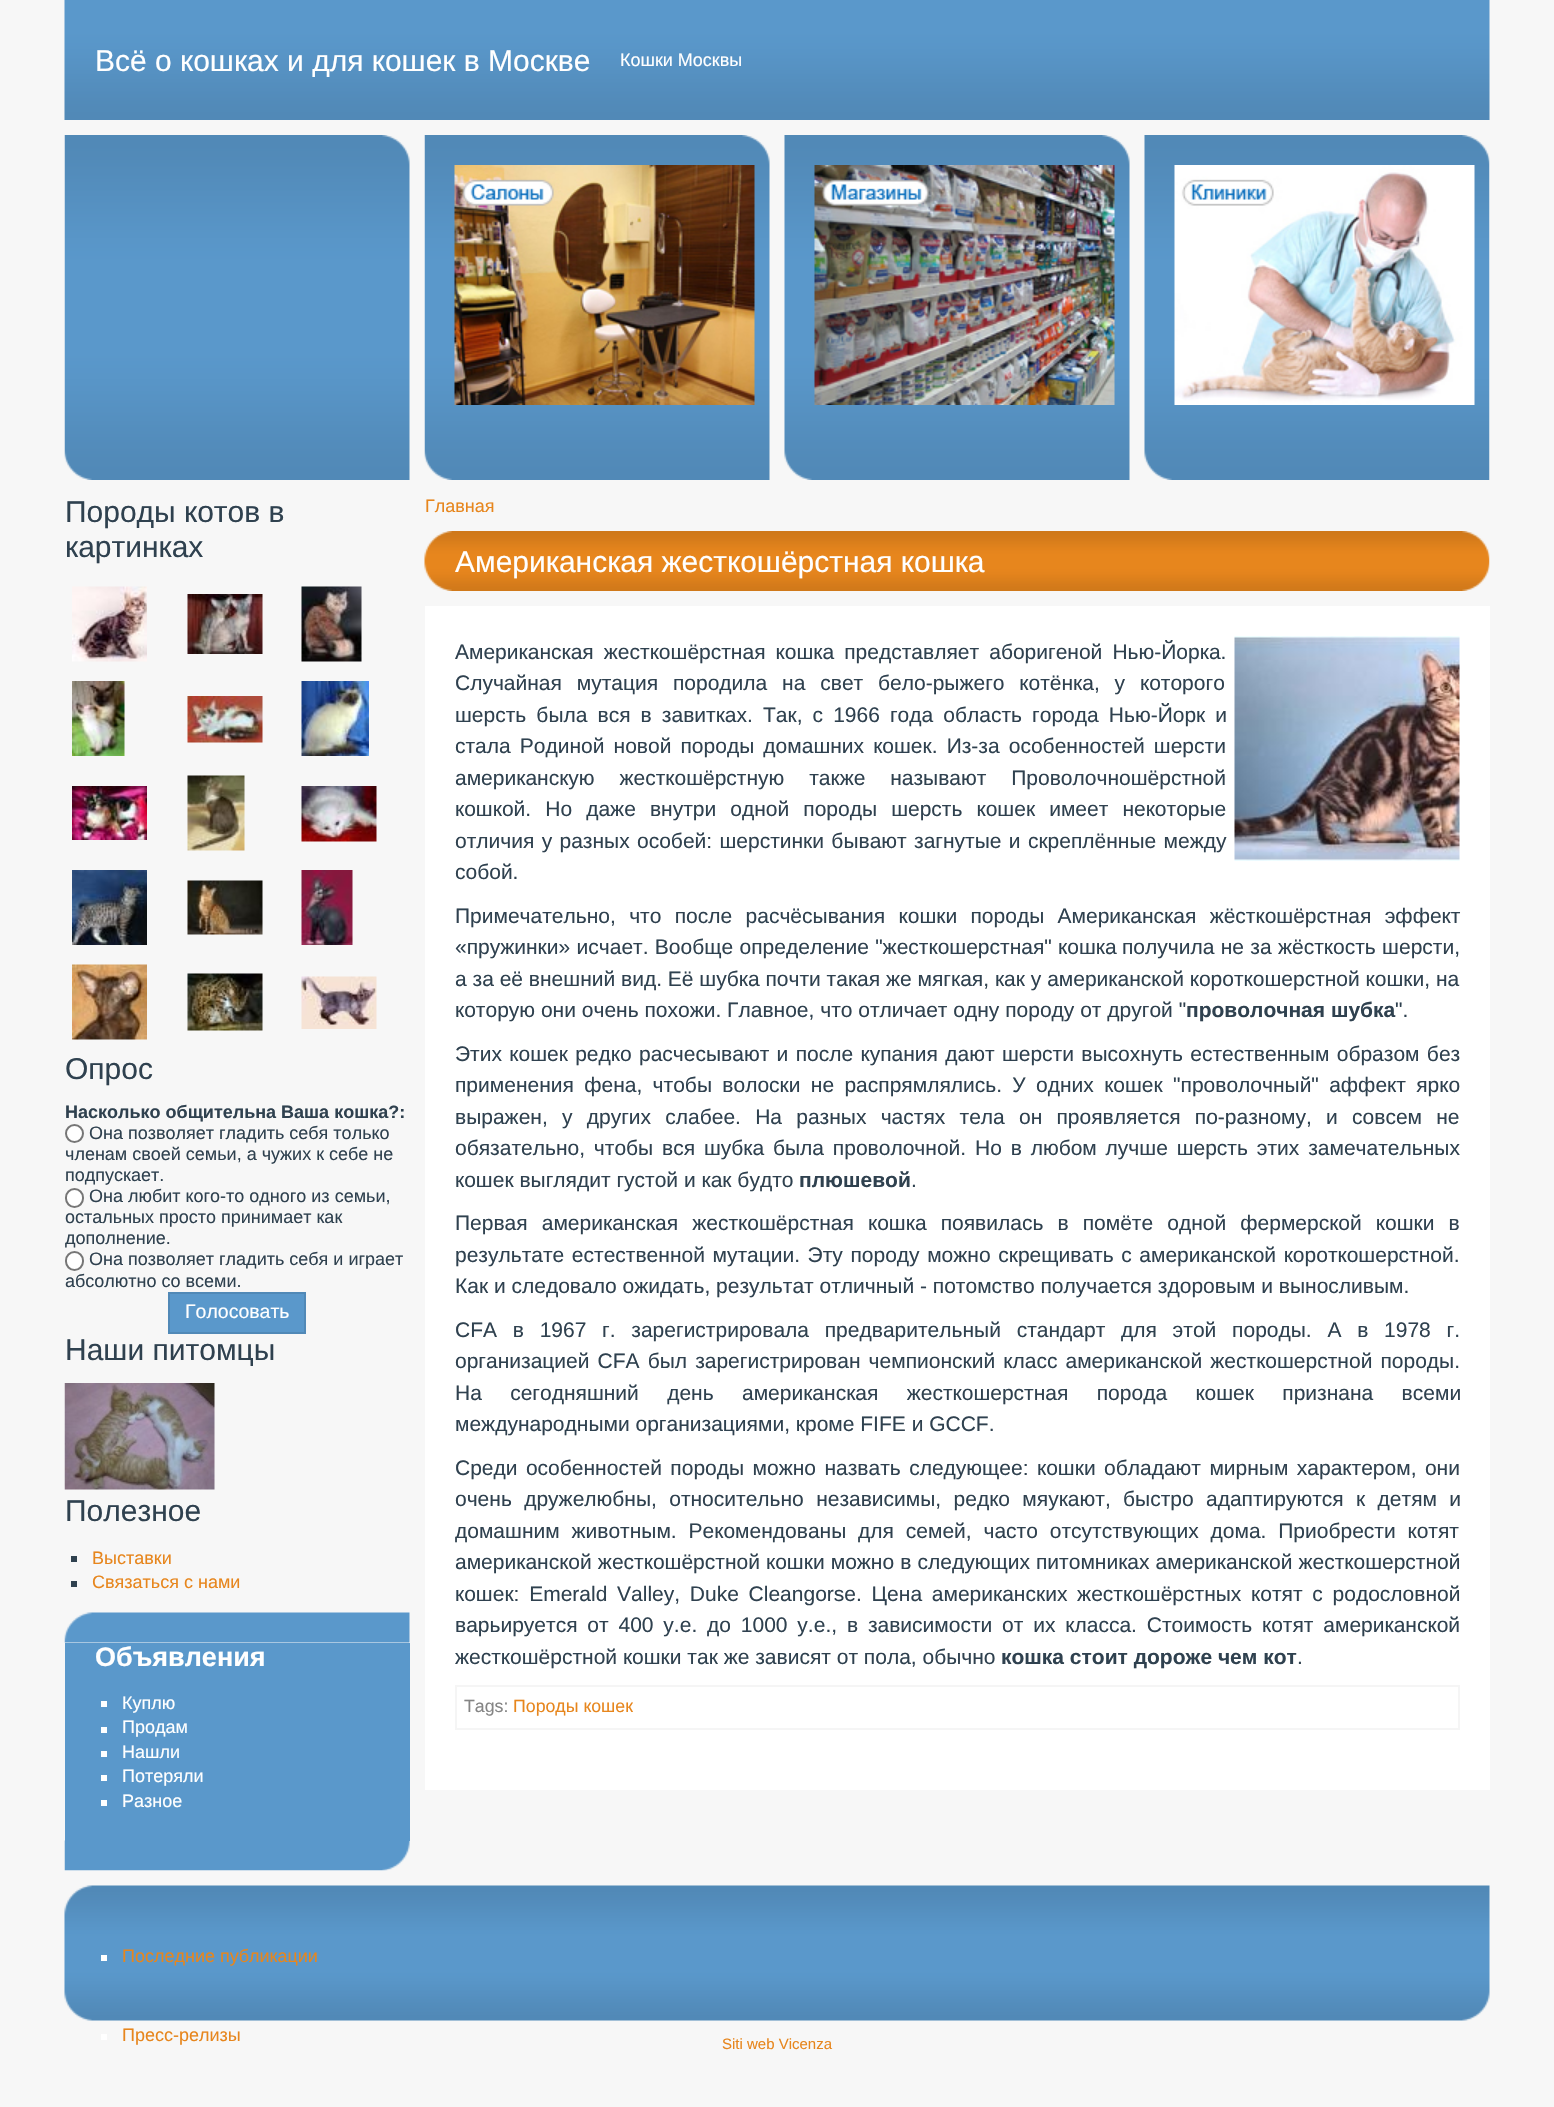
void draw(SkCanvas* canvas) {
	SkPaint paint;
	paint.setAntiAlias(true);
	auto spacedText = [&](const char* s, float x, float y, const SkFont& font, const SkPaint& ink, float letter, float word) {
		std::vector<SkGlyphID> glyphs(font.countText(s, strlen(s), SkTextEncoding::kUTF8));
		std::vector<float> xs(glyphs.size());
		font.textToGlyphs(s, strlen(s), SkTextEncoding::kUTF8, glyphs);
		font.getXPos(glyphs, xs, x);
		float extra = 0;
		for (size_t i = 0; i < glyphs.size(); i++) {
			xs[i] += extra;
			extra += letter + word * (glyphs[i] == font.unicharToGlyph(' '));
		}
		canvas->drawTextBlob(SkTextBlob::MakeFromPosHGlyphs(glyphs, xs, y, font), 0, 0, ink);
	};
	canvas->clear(0xfff7f7f7);
	canvas->drawImageRect(SkImages::DeferredFromEncodedData(SkData::MakeFromFileName("img1.png")), SkRect::MakeXYWH(64, 0, 1426, 120), SkSamplingOptions());
	SkFont f1(fontMgr->matchFamilyStyle("Liberation Sans", SkFontStyle::Normal()), 30);
	f1.setSubpixel(true);
	paint.setColor(0xffffffff);
	canvas->drawString("Всё о кошках и для кошек в Москве", 95, 71, f1, paint);
	SkFont f2(fontMgr->matchFamilyStyle("Liberation Sans", SkFontStyle::Normal()), 18);
	f2.setSubpixel(true);
	canvas->drawString("Кошки Москвы", 620, 66, f2, paint);
	canvas->drawImageRect(SkImages::DeferredFromEncodedData(SkData::MakeFromFileName("img2.png")), SkRect::MakeXYWH(64, 135, 346, 345), SkSamplingOptions());
	paint.setColor(0xff2f414f);
	canvas->drawString("Породы котов в", 65, 522, f1, paint);
	canvas->drawString("картинках", 65, 557, f1, paint);
	canvas->drawImageRect(SkImages::DeferredFromEncodedData(SkData::MakeFromFileName("img3.png")), SkRect::MakeXYWH(72, 586, 75, 76), SkSamplingOptions());
	canvas->drawImageRect(SkImages::DeferredFromEncodedData(SkData::MakeFromFileName("img4.png")), SkRect::MakeXYWH(187, 594, 76, 60), SkSamplingOptions());
	canvas->drawImageRect(SkImages::DeferredFromEncodedData(SkData::MakeFromFileName("img5.png")), SkRect::MakeXYWH(301, 586, 61, 76), SkSamplingOptions());
	canvas->drawImageRect(SkImages::DeferredFromEncodedData(SkData::MakeFromFileName("img6.png")), SkRect::MakeXYWH(72, 681, 53, 75), SkSamplingOptions());
	canvas->drawImageRect(SkImages::DeferredFromEncodedData(SkData::MakeFromFileName("img7.png")), SkRect::MakeXYWH(187, 696, 76, 47), SkSamplingOptions());
	canvas->drawImageRect(SkImages::DeferredFromEncodedData(SkData::MakeFromFileName("img8.png")), SkRect::MakeXYWH(301, 681, 68, 75), SkSamplingOptions());
	canvas->drawImageRect(SkImages::DeferredFromEncodedData(SkData::MakeFromFileName("img9.png")), SkRect::MakeXYWH(72, 786, 75, 54), SkSamplingOptions());
	canvas->drawImageRect(SkImages::DeferredFromEncodedData(SkData::MakeFromFileName("img10.png")), SkRect::MakeXYWH(187, 775, 58, 76), SkSamplingOptions());
	canvas->drawImageRect(SkImages::DeferredFromEncodedData(SkData::MakeFromFileName("img11.png")), SkRect::MakeXYWH(301, 786, 76, 56), SkSamplingOptions());
	canvas->drawImageRect(SkImages::DeferredFromEncodedData(SkData::MakeFromFileName("img12.png")), SkRect::MakeXYWH(72, 870, 75, 75), SkSamplingOptions());
	canvas->drawImageRect(SkImages::DeferredFromEncodedData(SkData::MakeFromFileName("img13.png")), SkRect::MakeXYWH(187, 880, 76, 55), SkSamplingOptions());
	canvas->drawImageRect(SkImages::DeferredFromEncodedData(SkData::MakeFromFileName("img14.png")), SkRect::MakeXYWH(301, 870, 52, 75), SkSamplingOptions());
	canvas->drawImageRect(SkImages::DeferredFromEncodedData(SkData::MakeFromFileName("img15.png")), SkRect::MakeXYWH(72, 964, 75, 76), SkSamplingOptions());
	canvas->drawImageRect(SkImages::DeferredFromEncodedData(SkData::MakeFromFileName("img16.png")), SkRect::MakeXYWH(187, 973, 76, 58), SkSamplingOptions());
	canvas->drawImageRect(SkImages::DeferredFromEncodedData(SkData::MakeFromFileName("img17.png")), SkRect::MakeXYWH(301, 976, 76, 53), SkSamplingOptions());
	canvas->drawString("Опрос", 65, 1079, f1, paint);
	SkFont f3(fontMgr->matchFamilyStyle("Liberation Sans", SkFontStyle::Bold()), 18);
	f3.setSubpixel(true);
	canvas->drawString("Насколько общительна Ваша кошка?:", 65, 1118, f3, paint);
	paint.setColor(0xffffffff);
	canvas->drawCircle(74.5, 1133.5, 8.5, paint);
	paint.setStroke(true);
	paint.setStrokeWidth(2);
	paint.setColor(0xff767676);
	canvas->drawCircle(74.5, 1133.5, 8.5, paint);
	paint.setStroke(false);
	paint.setColor(0xff2f414f);
	canvas->drawString("Она позволяет гладить себя только", 89, 1139, f2, paint);
	canvas->drawString("членам своей семьи, а чужих к себе не", 65, 1160, f2, paint);
	canvas->drawString("подпускает.", 65, 1181, f2, paint);
	paint.setColor(0xffffffff);
	canvas->drawRoundRect(SkRect::MakeXYWH(66, 1189, 17, 18), 8.5, 8.5, paint);
	paint.setStroke(true);
	paint.setColor(0xff767676);
	canvas->drawRoundRect(SkRect::MakeXYWH(66, 1189, 17, 18), 8.5, 8.5, paint);
	paint.setStroke(false);
	paint.setColor(0xff2f414f);
	canvas->drawString("Она любит кого-то одного из семьи,", 89, 1202, f2, paint);
	canvas->drawString("остальных просто принимает как", 65, 1223, f2, paint);
	canvas->save();
	canvas->clipRect(SkRect::MakeXYWH(65, 135, 1425, 1736));
	canvas->drawString("дополнение.", 65, 1244, f2, paint);
	canvas->restore();
	paint.setColor(0xffffffff);
	canvas->drawRoundRect(SkRect::MakeXYWH(66, 1252, 17, 18), 8.5, 8.5, paint);
	paint.setStroke(true);
	paint.setColor(0xff767676);
	canvas->drawRoundRect(SkRect::MakeXYWH(66, 1252, 17, 18), 8.5, 8.5, paint);
	paint.setStroke(false);
	paint.setColor(0xff2f414f);
	canvas->drawString("Она позволяет гладить себя и играет", 89, 1265, f2, paint);
	canvas->drawString("абсолютно со всеми.", 65, 1287, f2, paint);
	paint.setColor(0xff5a98cb);
	canvas->drawRect(SkRect::MakeXYWH(169, 1293, 136, 40), paint);
	paint.setStroke(true);
	paint.setColor(0xff5189b7);
	canvas->drawRect(SkRect::MakeXYWH(169, 1293, 136, 40), paint);
	SkFont f4(fontMgr->matchFamilyStyle("Liberation Sans", SkFontStyle::Normal()), 19.5);
	f4.setSubpixel(true);
	paint.setStroke(false);
	paint.setColor(0xffffffff);
	canvas->drawString("Голосовать", 185, 1318, f4, paint);
	paint.setColor(0xff2f414f);
	canvas->drawString("Наши питомцы", 65, 1360, f1, paint);
	canvas->drawImageRect(SkImages::DeferredFromEncodedData(SkData::MakeFromFileName("img18.png")), SkRect::MakeXYWH(64, 1383, 151, 107), SkSamplingOptions());
	canvas->drawString("Полезное", 65, 1521, f1, paint);
	canvas->drawRect(SkRect::MakeXYWH(71, 1556, 6, 6), paint);
	paint.setColor(0xffe7861d);
	canvas->drawString("Выставки", 92, 1564, f2, paint);
	paint.setColor(0xff2f414f);
	canvas->drawRect(SkRect::MakeXYWH(71, 1581, 6, 6), paint);
	paint.setColor(0xffe7861d);
	canvas->drawString("Связаться с нами", 92, 1588, f2, paint);
	canvas->drawImageRect(SkImages::DeferredFromEncodedData(SkData::MakeFromFileName("img19.png")), SkRect::MakeXYWH(64, 1612, 346, 31), SkSamplingOptions());
	paint.setColor(0xff5a98cb);
	canvas->drawRect(SkRect::MakeXYWH(65, 1643, 345, 198), paint);
	SkFont f5(fontMgr->matchFamilyStyle("Liberation Sans", SkFontStyle::Bold()), 27);
	f5.setSubpixel(true);
	paint.setColor(0xffffffff);
	canvas->drawString("Объявления", 95, 1666, f5, paint);
	canvas->drawRect(SkRect::MakeXYWH(101, 1701, 6, 6), paint);
	canvas->drawString("Куплю", 122, 1709, f2, paint);
	canvas->drawRect(SkRect::MakeXYWH(101, 1727, 6, 6), paint);
	canvas->drawString("Продам", 122, 1733, f2, paint);
	canvas->drawRect(SkRect::MakeXYWH(101, 1751, 6, 6), paint);
	canvas->drawString("Нашли", 122, 1758, f2, paint);
	canvas->drawRect(SkRect::MakeXYWH(101, 1775, 6, 6), paint);
	canvas->drawString("Потеряли", 122, 1782, f2, paint);
	canvas->drawRect(SkRect::MakeXYWH(101, 1800, 6, 6), paint);
	canvas->drawString("Разное", 122, 1807, f2, paint);
	canvas->drawImageRect(SkImages::DeferredFromEncodedData(SkData::MakeFromFileName("img20.png")), SkRect::MakeXYWH(64, 1840, 346, 31), SkSamplingOptions());
	canvas->drawImageRect(SkImages::DeferredFromEncodedData(SkData::MakeFromFileName("img21.png")), SkRect::MakeXYWH(424, 135, 346, 345), SkSamplingOptions());
	canvas->drawImageRect(SkImages::DeferredFromEncodedData(SkData::MakeFromFileName("img22.png")), SkRect::MakeXYWH(454, 165, 301, 240), SkSamplingOptions());
	canvas->drawImageRect(SkImages::DeferredFromEncodedData(SkData::MakeFromFileName("img23.png")), SkRect::MakeXYWH(784, 135, 346, 345), SkSamplingOptions());
	canvas->drawImageRect(SkImages::DeferredFromEncodedData(SkData::MakeFromFileName("img24.png")), SkRect::MakeXYWH(814, 165, 301, 240), SkSamplingOptions());
	canvas->drawImageRect(SkImages::DeferredFromEncodedData(SkData::MakeFromFileName("img25.png")), SkRect::MakeXYWH(1144, 135, 346, 345), SkSamplingOptions());
	canvas->drawImageRect(SkImages::DeferredFromEncodedData(SkData::MakeFromFileName("img26.png")), SkRect::MakeXYWH(1174, 165, 301, 240), SkSamplingOptions());
	paint.setColor(0xffe7861d);
	canvas->drawString("Главная", 425, 512, f2, paint);
	canvas->drawImageRect(SkImages::DeferredFromEncodedData(SkData::MakeFromFileName("img27.png")), SkRect::MakeXYWH(424, 531, 1066, 60), SkSamplingOptions());
	paint.setColor(0xffffffff);
	canvas->drawString("Американская жесткошёрстная кошка", 455, 572, f1, paint);
	canvas->drawRect(SkRect::MakeXYWH(425, 606, 1065, 1184), paint);
	SkFont f6(fontMgr->matchFamilyStyle("Liberation Sans", SkFontStyle::Normal()), 21);
	f6.setSubpixel(true);
	paint.setColor(0xff2f414f);
	spacedText("Американская жесткошёрстная кошка представляет аборигеной Нью-Йорка.", 455, 659, f6, paint, 0, 4.25);
	spacedText("Случайная мутация породила на свет бело-рыжего котёнка, у которого", 455, 690, f6, paint, 0, 9);
	spacedText("шерсть была вся в завитках. Так, с 1966 года область города Нью-Йорк и", 455, 722, f6, paint, 0, 4.25);
	spacedText("стала Родиной новой породы домашних кошек. Из-за особенностей шерсти", 455, 753, f6, paint, 0, 3.25);
	spacedText("американскую жесткошёрстную также называют Проволочношёрстной", 455, 785, f6, paint, 0, 19);
	spacedText("кошкой. Но даже внутри одной породы шерсть кошек имеет некоторые", 455, 816, f6, paint, 0, 8.25);
	spacedText("отличия у разных особей: шерстинки бывают загнутые и скреплённые между", 455, 848, f6, paint, 0, 1.5);
	canvas->drawString("собой.", 455, 879, f6, paint);
	canvas->drawImageRect(SkImages::DeferredFromEncodedData(SkData::MakeFromFileName("img28.png")), SkRect::MakeXYWH(1234, 636, 226, 225), SkSamplingOptions());
	spacedText("Примечательно, что после расчёсывания кошки породы Американская жёсткошёрстная эффект", 455, 923, f6, paint, 0, 7.5);
	spacedText("«пружинки» исчает. Вообще определение \"жесткошерстная\" кошка", 455, 954, f6, paint, 0, 0.5);
	spacedText("получила не за жёсткость шерсти,", 1122, 954, f6, paint, 0, 0.5);
	canvas->drawString("а за её внешний вид. Её шубка почти такая же мягкая, как у американской короткошерстной кошки, на", 455, 986, f6, paint);
	canvas->drawString("которую они очень похожи. Главное, что отличает одну породу от другой \"", 455, 1017, f6, paint);
	SkFont f7(fontMgr->matchFamilyStyle("Liberation Sans", SkFontStyle::Bold()), 21);
	f7.setSubpixel(true);
	canvas->drawString("проволочная шубка", 1186, 1017, f7, paint);
	canvas->drawString("\".", 1395, 1017, f6, paint);
	spacedText("Этих кошек редко расчесывают и после купания дают шерсти высохнуть естественным образом без", 455, 1061, f6, paint, 0, 1.5);
	spacedText("применения фена, чтобы волоски не распрямлялись. У одних кошек \"проволочный\" аффект ярко", 455, 1092, f6, paint, 0, 4.5);
	spacedText("выражен, у других слабее. На разных частях тела он проявляется по-разному, и совсем не", 455, 1124, f6, paint, 0, 8.4);
	spacedText("обязательно, чтобы вся шубка была проволочной. Но в любом лучше шерсть этих замечательных", 455, 1155, f6, paint, 0, 3);
	canvas->drawString("кошек выглядит густой и как будто", 455, 1187, f6, paint);
	canvas->drawString("плюшевой", 799, 1187, f7, paint);
	canvas->drawString(".", 911, 1187, f6, paint);
	spacedText("Первая американская жесткошёрстная кошка появилась в помёте одной фермерской кошки в", 455, 1230, f6, paint, 0, 8.25);
	spacedText("результате естественной мутации. Эту породу можно скрещивать с американской короткошерстной.", 455, 1262, f6, paint, 0, 1.75);
	canvas->drawString("Как и следовало ожидать, результат отличный - потомство получается здоровым и выносливым.", 455, 1293, f6, paint);
	spacedText("CFA в 1967 г. зарегистрировала предварительный стандарт для этой породы. А в 1978 г.", 455, 1337, f6, paint, 0, 9.9);
	spacedText("организацией CFA был зарегистрирован чемпионский класс американской жесткошерстной породы.", 455, 1368, f6, paint, 0, 2.25);
	spacedText("На сегодняшний день американская жесткошерстная порода кошек признана всеми", 455, 1400, f6, paint, 0, 22.5);
	canvas->drawString("международными организациями, кроме FIFE и GCCF.", 455, 1431, f6, paint);
	spacedText("Среди особенностей породы можно назвать следующее: кошки обладают мирным характером, они", 455, 1475, f6, paint, 0, 2.6);
	spacedText("очень дружелюбны, относительно независимы, редко мяукают, быстро адаптируются к детям и", 455, 1506, f6, paint, 0, 6.5);
	spacedText("домашним животным. Рекомендованы для семей, часто отсутствующих дома. Приобрести котят", 455, 1538, f6, paint, 0, 6);
	spacedText("американской жесткошёрстной кошки можно в следующих питомниках американской жесткошерстной", 455, 1569, f6, paint, 0, 0.25);
	spacedText("кошек: Emerald Valley, Duke Cleangorse. Цена американских жесткошёрстных котят с родословной", 455, 1601, f6, paint, 0, 3.9);
	spacedText("варьируется от 400 у.е. до 1000 у.е., в зависимости от их класса. Стоимость котят американской", 455, 1632, f6, paint, 0, 4);
	canvas->drawString("жесткошёрстной кошки так же зависят от пола, обычно", 455, 1664, f6, paint);
	canvas->drawString("кошка стоит дороже чем кот", 1001, 1664, f7, paint);
	canvas->drawString(".", 1297, 1664, f6, paint);
	paint.setStroke(true);
	paint.setColor(0xfff5f5f5);
	canvas->drawRect(SkRect::MakeXYWH(456, 1686, 1003, 43), paint);
	SkFont f8(fontMgr->matchFamilyStyle("Liberation Sans", SkFontStyle::Normal()), 17.75);
	f8.setSubpixel(true);
	paint.setStroke(false);
	paint.setColor(0xff858585);
	canvas->drawString("Tags:", 464, 1712, f8, paint);
	paint.setColor(0xffe7861d);
	canvas->drawString("Породы кошек", 513, 1712, f8, paint);
	canvas->drawImageRect(SkImages::DeferredFromEncodedData(SkData::MakeFromFileName("img29.png")), SkRect::MakeXYWH(64, 1885, 1426, 136), SkSamplingOptions());
	paint.setColor(0xffffffff);
	canvas->drawRect(SkRect::MakeXYWH(101, 1955, 6, 6), paint);
	paint.setColor(0xffe7861d);
	canvas->drawString("Последние публикации", 122, 1962, f2, paint);
	paint.setColor(0xffffffff);
	canvas->drawRect(SkRect::MakeXYWH(101, 2034, 6, 6), paint);
	paint.setColor(0xffe7861d);
	canvas->drawString("Пресс-релизы", 122, 2041, f2, paint);
	SkFont f9(fontMgr->matchFamilyStyle("Liberation Sans", SkFontStyle::Normal()), 15);
	f9.setSubpixel(true);
	canvas->drawString("Siti web Vicenza", 722, 2049, f9, paint);
}
